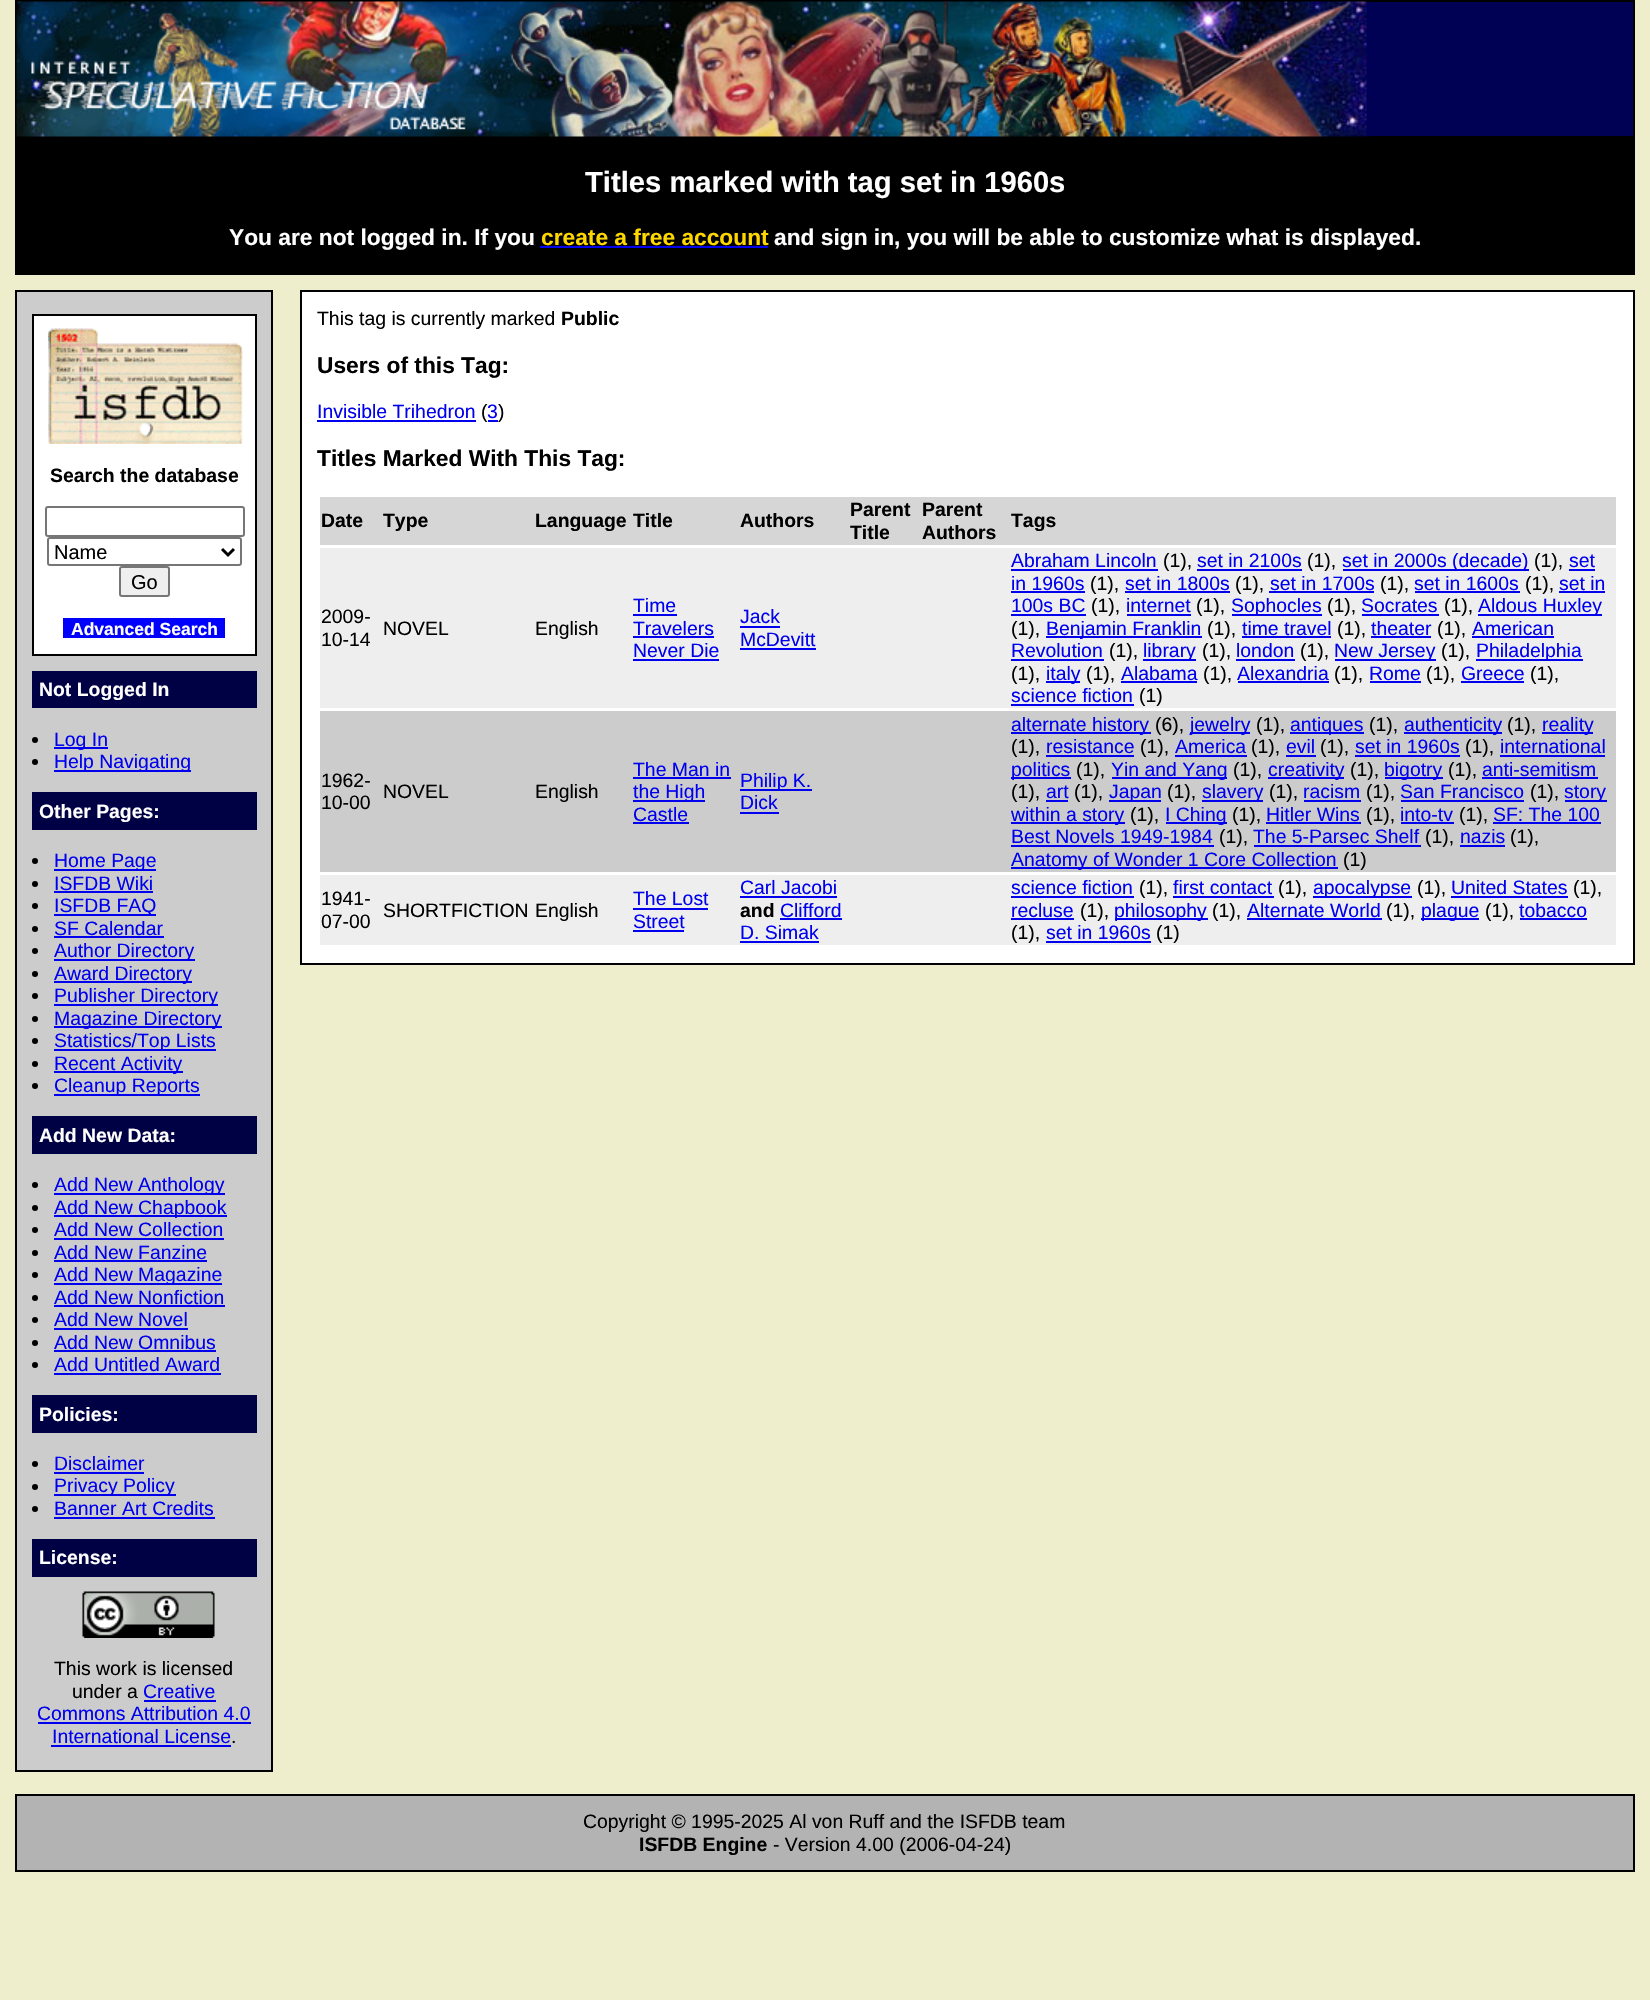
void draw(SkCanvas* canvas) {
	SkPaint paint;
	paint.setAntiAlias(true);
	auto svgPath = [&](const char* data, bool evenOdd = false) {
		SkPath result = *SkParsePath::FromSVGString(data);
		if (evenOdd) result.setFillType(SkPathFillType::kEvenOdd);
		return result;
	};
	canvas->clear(0xffeeeecc);
	paint.setColor(0xff000055);
	canvas->drawRect(SkRect::MakeXYWH(1366, 2, 267, 134), paint);
	paint.setStroke(true);
	paint.setStrokeWidth(2);
	paint.setColor(0xff000000);
	canvas->drawRect(SkRect::MakeXYWH(16, 1, 1618, 136), paint);
	canvas->drawImageRect(SkImages::DeferredFromEncodedData(SkData::MakeFromFileName("img1.png")), SkRect::MakeXYWH(16, 1, 1351, 136), SkSamplingOptions());
	paint.setStroke(false);
	canvas->drawRect(SkRect::MakeXYWH(15, 138, 1620, 137), paint);
	SkFont f1(fontMgr->matchFamilyStyle("Liberation Sans", SkFontStyle::Bold()), 29.2);
	f1.setSubpixel(true);
	paint.setColor(0xffffffff);
	canvas->drawString("Titles marked with tag set in 1960s", 585, 192, f1, paint);
	SkFont f2(fontMgr->matchFamilyStyle("Liberation Sans", SkFontStyle::Bold()), 22.75);
	f2.setSubpixel(true);
	canvas->drawString("You are not logged in. If you", 229, 245, f2, paint);
	paint.setColor(0xffffd700);
	canvas->drawString("create a free account", 541, 245, f2, paint);
	paint.setColor(0xff0000ee);
	canvas->drawRect(SkRect::MakeXYWH(540, 246, 228, 2), paint);
	paint.setColor(0xffffffff);
	canvas->drawString("and sign in, you will be able to customize what is displayed.", 774, 245, f2, paint);
	paint.setColor(0xffcccccc);
	canvas->drawRect(SkRect::MakeXYWH(16, 291, 256, 1480), paint);
	paint.setStroke(true);
	paint.setColor(0xff000000);
	canvas->drawRect(SkRect::MakeXYWH(16, 291, 256, 1480), paint);
	paint.setStroke(false);
	paint.setColor(0xffffffff);
	canvas->drawRect(SkRect::MakeXYWH(33, 315, 223, 340), paint);
	paint.setStroke(true);
	paint.setColor(0xff000000);
	canvas->drawRect(SkRect::MakeXYWH(33, 315, 223, 340), paint);
	canvas->drawImageRect(SkImages::DeferredFromEncodedData(SkData::MakeFromFileName("img2.png")), SkRect::MakeXYWH(48, 328, 195, 116), SkSamplingOptions());
	SkFont f3(fontMgr->matchFamilyStyle("Liberation Sans", SkFontStyle::Bold()), 19.4);
	f3.setSubpixel(true);
	paint.setStroke(false);
	canvas->drawString("Search the database", 50, 482, f3, paint);
	paint.setStroke(true);
	paint.setColor(0xff767676);
	canvas->drawRoundRect(SkRect::MakeXYWH(46, 507, 198, 29), 2, 2, paint);
	canvas->drawRoundRect(SkRect::MakeXYWH(48, 538, 193, 27), 2, 2, paint);
	paint.setStrokeWidth(3);
	paint.setColor(0xff000000);
	canvas->drawPath(svgPath("M222 549L228 555L234 549"), paint);
	SkFont f4(fontMgr->matchFamilyStyle("Liberation Sans", SkFontStyle::Normal()), 20);
	f4.setSubpixel(true);
	paint.setStroke(false);
	canvas->drawString("Name", 54, 559, f4, paint);
	paint.setColor(0xffefefef);
	canvas->drawRoundRect(SkRect::MakeXYWH(120, 567, 49, 29), 2, 2, paint);
	paint.setStroke(true);
	paint.setStrokeWidth(2);
	paint.setColor(0xff767676);
	canvas->drawRoundRect(SkRect::MakeXYWH(120, 567, 49, 29), 2, 2, paint);
	paint.setStroke(false);
	paint.setColor(0xff000000);
	canvas->drawString("Go", 131, 589, f4, paint);
	paint.setColor(0xff0000ff);
	canvas->drawRect(SkRect::MakeXYWH(63, 618, 162, 20), paint);
	SkFont f5(fontMgr->matchFamilyStyle("Liberation Sans", SkFontStyle::Bold()), 17.5);
	f5.setSubpixel(true);
	paint.setColor(0xffffffff);
	canvas->drawString("Advanced Search", 71, 635, f5, paint);
	paint.setColor(0xff000044);
	canvas->drawRect(SkRect::MakeXYWH(32, 671, 225, 37), paint);
	paint.setColor(0xffffffff);
	canvas->drawString("Not Logged In", 39, 696, f3, paint);
	paint.setColor(0xff000000);
	canvas->drawCircle(35, 740, 3, paint);
	paint.setColor(0xff0000ee);
	canvas->drawRect(SkRect::MakeXYWH(54, 747, 54, 2), paint);
	SkFont f6(fontMgr->matchFamilyStyle("Liberation Sans", SkFontStyle::Normal()), 19.4);
	f6.setSubpixel(true);
	canvas->drawString("Log In", 54, 746, f6, paint);
	paint.setColor(0xff000000);
	canvas->drawCircle(35, 762, 3, paint);
	paint.setColor(0xff0000ee);
	canvas->drawRect(SkRect::MakeXYWH(54, 770, 137, 2), paint);
	canvas->drawString("Help Navigating", 54, 768, f6, paint);
	paint.setColor(0xff000044);
	canvas->drawRect(SkRect::MakeXYWH(32, 792, 225, 38), paint);
	paint.setColor(0xffffffff);
	canvas->drawString("Other Pages:", 39, 818, f3, paint);
	paint.setColor(0xff000000);
	canvas->drawCircle(35, 861, 3, paint);
	paint.setColor(0xff0000ee);
	canvas->drawRect(SkRect::MakeXYWH(54, 869, 102, 2), paint);
	canvas->drawString("Home Page", 54, 867, f6, paint);
	paint.setColor(0xff000000);
	canvas->drawCircle(35, 884, 3, paint);
	paint.setColor(0xff0000ee);
	canvas->drawString("ISFDB Wiki", 54, 890, f6, paint);
	canvas->drawRect(SkRect::MakeXYWH(54, 891, 99, 2), paint);
	paint.setColor(0xff000000);
	canvas->drawCircle(35, 906, 3, paint);
	paint.setColor(0xff0000ee);
	canvas->drawRect(SkRect::MakeXYWH(54, 914, 102, 2), paint);
	canvas->drawString("ISFDB FAQ", 54, 912, f6, paint);
	paint.setColor(0xff000000);
	canvas->drawCircle(35, 929, 3, paint);
	paint.setColor(0xff0000ee);
	canvas->drawString("SF Calendar", 54, 935, f6, paint);
	canvas->drawRect(SkRect::MakeXYWH(54, 936, 110, 2), paint);
	paint.setColor(0xff000000);
	canvas->drawCircle(35, 951, 3, paint);
	paint.setColor(0xff0000ee);
	canvas->drawRect(SkRect::MakeXYWH(54, 959, 141, 2), paint);
	canvas->drawString("Author Directory", 54, 957, f6, paint);
	paint.setColor(0xff000000);
	canvas->drawCircle(35, 974, 3, paint);
	paint.setColor(0xff0000ee);
	canvas->drawRect(SkRect::MakeXYWH(54, 981, 138, 2), paint);
	canvas->drawString("Award Directory", 54, 980, f6, paint);
	paint.setColor(0xff000000);
	canvas->drawCircle(35, 996, 3, paint);
	paint.setColor(0xff0000ee);
	canvas->drawRect(SkRect::MakeXYWH(54, 1004, 164, 2), paint);
	canvas->drawString("Publisher Directory", 54, 1002, f6, paint);
	paint.setColor(0xff000000);
	canvas->drawCircle(35, 1019, 3, paint);
	paint.setColor(0xff0000ee);
	canvas->drawRect(SkRect::MakeXYWH(54, 1026, 168, 2), paint);
	canvas->drawString("Magazine Directory", 54, 1025, f6, paint);
	paint.setColor(0xff000000);
	canvas->drawCircle(35, 1041, 3, paint);
	paint.setColor(0xff0000ee);
	canvas->drawRect(SkRect::MakeXYWH(54, 1049, 162, 2), paint);
	canvas->drawString("Statistics/Top Lists", 54, 1047, f6, paint);
	paint.setColor(0xff000000);
	canvas->drawCircle(35, 1064, 3, paint);
	paint.setColor(0xff0000ee);
	canvas->drawRect(SkRect::MakeXYWH(54, 1071, 129, 2), paint);
	canvas->drawString("Recent Activity", 54, 1070, f6, paint);
	paint.setColor(0xff000000);
	canvas->drawCircle(35, 1086, 3, paint);
	paint.setColor(0xff0000ee);
	canvas->drawRect(SkRect::MakeXYWH(54, 1094, 146, 2), paint);
	canvas->drawString("Cleanup Reports", 54, 1092, f6, paint);
	paint.setColor(0xff000044);
	canvas->drawRect(SkRect::MakeXYWH(32, 1116, 225, 38), paint);
	paint.setColor(0xffffffff);
	canvas->drawString("Add New Data:", 39, 1142, f3, paint);
	paint.setColor(0xff000000);
	canvas->drawCircle(35, 1185, 3, paint);
	paint.setColor(0xff0000ee);
	canvas->drawRect(SkRect::MakeXYWH(54, 1193, 171, 2), paint);
	canvas->drawString("Add New Anthology", 54, 1191, f6, paint);
	paint.setColor(0xff000000);
	canvas->drawCircle(35, 1208, 3, paint);
	paint.setColor(0xff0000ee);
	canvas->drawRect(SkRect::MakeXYWH(54, 1215, 173, 2), paint);
	canvas->drawString("Add New Chapbook", 54, 1214, f6, paint);
	paint.setColor(0xff000000);
	canvas->drawCircle(35, 1230, 3, paint);
	paint.setColor(0xff0000ee);
	canvas->drawString("Add New Collection", 54, 1236, f6, paint);
	canvas->drawRect(SkRect::MakeXYWH(54, 1238, 170, 2), paint);
	paint.setColor(0xff000000);
	canvas->drawCircle(35, 1253, 3, paint);
	paint.setColor(0xff0000ee);
	canvas->drawString("Add New Fanzine", 54, 1259, f6, paint);
	canvas->drawRect(SkRect::MakeXYWH(54, 1260, 153, 2), paint);
	paint.setColor(0xff000000);
	canvas->drawCircle(35, 1275, 3, paint);
	paint.setColor(0xff0000ee);
	canvas->drawRect(SkRect::MakeXYWH(54, 1283, 168, 2), paint);
	canvas->drawString("Add New Magazine", 54, 1281, f6, paint);
	paint.setColor(0xff000000);
	canvas->drawCircle(35, 1298, 3, paint);
	paint.setColor(0xff0000ee);
	canvas->drawString("Add New Nonfiction", 54, 1304, f6, paint);
	canvas->drawRect(SkRect::MakeXYWH(54, 1305, 171, 2), paint);
	paint.setColor(0xff000000);
	canvas->drawCircle(35, 1320, 3, paint);
	paint.setColor(0xff0000ee);
	canvas->drawString("Add New Novel", 54, 1326, f6, paint);
	canvas->drawRect(SkRect::MakeXYWH(54, 1328, 134, 2), paint);
	paint.setColor(0xff000000);
	canvas->drawCircle(35, 1343, 3, paint);
	paint.setColor(0xff0000ee);
	canvas->drawString("Add New Omnibus", 54, 1349, f6, paint);
	canvas->drawRect(SkRect::MakeXYWH(54, 1350, 162, 2), paint);
	paint.setColor(0xff000000);
	canvas->drawCircle(35, 1365, 3, paint);
	paint.setColor(0xff0000ee);
	canvas->drawString("Add Untitled Award", 54, 1371, f6, paint);
	canvas->drawRect(SkRect::MakeXYWH(54, 1373, 167, 2), paint);
	paint.setColor(0xff000044);
	canvas->drawRect(SkRect::MakeXYWH(32, 1395, 225, 38), paint);
	paint.setColor(0xffffffff);
	canvas->drawString("Policies:", 39, 1421, f3, paint);
	paint.setColor(0xff000000);
	canvas->drawCircle(35, 1464, 3, paint);
	paint.setColor(0xff0000ee);
	canvas->drawString("Disclaimer", 54, 1470, f6, paint);
	canvas->drawRect(SkRect::MakeXYWH(54, 1472, 90, 2), paint);
	paint.setColor(0xff000000);
	canvas->drawCircle(35, 1487, 3, paint);
	paint.setColor(0xff0000ee);
	canvas->drawRect(SkRect::MakeXYWH(54, 1494, 122, 2), paint);
	canvas->drawString("Privacy Policy", 54, 1492, f6, paint);
	paint.setColor(0xff000000);
	canvas->drawCircle(35, 1509, 3, paint);
	paint.setColor(0xff0000ee);
	canvas->drawString("Banner Art Credits", 54, 1515, f6, paint);
	canvas->drawRect(SkRect::MakeXYWH(54, 1517, 161, 2), paint);
	paint.setColor(0xff000044);
	canvas->drawRect(SkRect::MakeXYWH(32, 1539, 225, 38), paint);
	paint.setColor(0xffffffff);
	canvas->drawString("License:", 39, 1564, f3, paint);
	canvas->drawImageRect(SkImages::DeferredFromEncodedData(SkData::MakeFromFileName("img3.png")), SkRect::MakeXYWH(82, 1591, 133, 47), SkSamplingOptions());
	paint.setColor(0xff000000);
	canvas->drawString("This work is licensed", 54, 1675, f6, paint);
	canvas->drawString("under a", 72, 1698, f6, paint);
	paint.setColor(0xff0000ee);
	canvas->drawString("Creative", 143, 1698, f6, paint);
	canvas->drawRect(SkRect::MakeXYWH(144, 1700, 72, 2), paint);
	canvas->drawString("Commons Attribution 4.0", 37, 1720, f6, paint);
	canvas->drawRect(SkRect::MakeXYWH(38, 1722, 213, 2), paint);
	canvas->drawString("International License", 52, 1743, f6, paint);
	canvas->drawRect(SkRect::MakeXYWH(51, 1745, 180, 2), paint);
	paint.setColor(0xff000000);
	canvas->drawString(".", 231, 1743, f6, paint);
	paint.setColor(0xffffffff);
	canvas->drawRect(SkRect::MakeXYWH(301, 291, 1333, 673), paint);
	paint.setStroke(true);
	paint.setColor(0xff000000);
	canvas->drawRect(SkRect::MakeXYWH(301, 291, 1333, 673), paint);
	paint.setStroke(false);
	canvas->drawString("This tag is currently marked", 317, 325, f6, paint);
	canvas->drawString("Public", 561, 325, f3, paint);
	canvas->drawString("Users of this Tag:", 317, 373, f2, paint);
	paint.setColor(0xff0000ee);
	canvas->drawString("Invisible Trihedron", 317, 418, f6, paint);
	canvas->drawRect(SkRect::MakeXYWH(317, 420, 159, 2), paint);
	paint.setColor(0xff000000);
	canvas->drawString("(", 481, 418, f6, paint);
	paint.setColor(0xff0000ee);
	canvas->drawString("3", 487, 418, f6, paint);
	canvas->drawRect(SkRect::MakeXYWH(488, 420, 10, 2), paint);
	paint.setColor(0xff000000);
	canvas->drawString(")", 498, 418, f6, paint);
	canvas->drawString("Titles Marked With This Tag:", 317, 466, f2, paint);
	paint.setColor(0xffd6d6d6);
	canvas->drawRect(SkRect::MakeXYWH(320, 497, 1296, 48), paint);
	paint.setColor(0xff000000);
	canvas->drawString("Date", 321, 527, f3, paint);
	canvas->drawString("Type", 383, 527, f3, paint);
	canvas->drawString("Language", 535, 527, f3, paint);
	canvas->drawString("Title", 633, 527, f3, paint);
	canvas->drawString("Authors", 740, 527, f3, paint);
	canvas->drawString("Parent", 850, 516, f3, paint);
	canvas->drawString("Title", 850, 539, f3, paint);
	canvas->drawString("Parent", 922, 516, f3, paint);
	canvas->drawString("Authors", 922, 539, f3, paint);
	canvas->drawString("Tags", 1011, 527, f3, paint);
	paint.setColor(0xffeeeeee);
	canvas->drawRect(SkRect::MakeXYWH(320, 548, 1296, 160), paint);
	paint.setColor(0xff000000);
	canvas->drawString("2009-", 321, 623, f6, paint);
	canvas->drawString("10-14", 321, 646, f6, paint);
	canvas->drawString("NOVEL", 383, 635, f6, paint);
	canvas->drawString("English", 535, 635, f6, paint);
	paint.setColor(0xff0000ee);
	canvas->drawString("Time", 633, 612, f6, paint);
	canvas->drawRect(SkRect::MakeXYWH(633, 614, 44, 2), paint);
	canvas->drawString("Travelers", 633, 635, f6, paint);
	canvas->drawRect(SkRect::MakeXYWH(633, 636, 81, 2), paint);
	canvas->drawString("Never Die", 633, 657, f6, paint);
	canvas->drawRect(SkRect::MakeXYWH(633, 659, 86, 2), paint);
	canvas->drawString("Jack", 740, 623, f6, paint);
	canvas->drawRect(SkRect::MakeXYWH(740, 626, 40, 2), paint);
	canvas->drawString("McDevitt", 740, 646, f6, paint);
	canvas->drawRect(SkRect::MakeXYWH(740, 648, 76, 2), paint);
	canvas->drawString("Abraham Lincoln", 1011, 567, f6, paint);
	canvas->drawRect(SkRect::MakeXYWH(1011, 569, 147, 2), paint);
	paint.setColor(0xff000000);
	canvas->drawString("(1),", 1163, 567, f6, paint);
	paint.setColor(0xff0000ee);
	canvas->drawString("set in 2100s", 1197, 567, f6, paint);
	canvas->drawRect(SkRect::MakeXYWH(1197, 569, 105, 2), paint);
	paint.setColor(0xff000000);
	canvas->drawString("(1),", 1307, 567, f6, paint);
	paint.setColor(0xff0000ee);
	canvas->drawRect(SkRect::MakeXYWH(1343, 569, 186, 2), paint);
	canvas->drawString("set in 2000s (decade)", 1342, 567, f6, paint);
	paint.setColor(0xff000000);
	canvas->drawString("(1),", 1534, 567, f6, paint);
	paint.setColor(0xff0000ee);
	canvas->drawString("set", 1569, 567, f6, paint);
	canvas->drawRect(SkRect::MakeXYWH(1569, 569, 26, 2), paint);
	canvas->drawString("in 1960s", 1011, 590, f6, paint);
	canvas->drawRect(SkRect::MakeXYWH(1011, 591, 74, 2), paint);
	paint.setColor(0xff000000);
	canvas->drawString("(1),", 1090, 590, f6, paint);
	paint.setColor(0xff0000ee);
	canvas->drawString("set in 1800s", 1125, 590, f6, paint);
	canvas->drawRect(SkRect::MakeXYWH(1125, 591, 105, 2), paint);
	paint.setColor(0xff000000);
	canvas->drawString("(1),", 1235, 590, f6, paint);
	paint.setColor(0xff0000ee);
	canvas->drawString("set in 1700s", 1270, 590, f6, paint);
	canvas->drawRect(SkRect::MakeXYWH(1269, 591, 105, 2), paint);
	paint.setColor(0xff000000);
	canvas->drawString("(1),", 1380, 590, f6, paint);
	paint.setColor(0xff0000ee);
	canvas->drawString("set in 1600s", 1414, 590, f6, paint);
	canvas->drawRect(SkRect::MakeXYWH(1415, 591, 105, 2), paint);
	paint.setColor(0xff000000);
	canvas->drawString("(1),", 1525, 590, f6, paint);
	paint.setColor(0xff0000ee);
	canvas->drawString("set in", 1559, 590, f6, paint);
	canvas->drawRect(SkRect::MakeXYWH(1559, 591, 46, 2), paint);
	canvas->drawString("100s BC", 1011, 612, f6, paint);
	canvas->drawRect(SkRect::MakeXYWH(1011, 614, 75, 2), paint);
	paint.setColor(0xff000000);
	canvas->drawString("(1),", 1091, 612, f6, paint);
	paint.setColor(0xff0000ee);
	canvas->drawString("internet", 1126, 612, f6, paint);
	canvas->drawRect(SkRect::MakeXYWH(1127, 614, 64, 2), paint);
	paint.setColor(0xff000000);
	canvas->drawString("(1),", 1196, 612, f6, paint);
	paint.setColor(0xff0000ee);
	canvas->drawRect(SkRect::MakeXYWH(1232, 614, 90, 2), paint);
	canvas->drawString("Sophocles", 1231, 612, f6, paint);
	paint.setColor(0xff000000);
	canvas->drawString("(1),", 1327, 612, f6, paint);
	paint.setColor(0xff0000ee);
	canvas->drawString("Socrates", 1361, 612, f6, paint);
	canvas->drawRect(SkRect::MakeXYWH(1362, 614, 77, 2), paint);
	paint.setColor(0xff000000);
	canvas->drawString("(1),", 1444, 612, f6, paint);
	paint.setColor(0xff0000ee);
	canvas->drawRect(SkRect::MakeXYWH(1478, 614, 124, 2), paint);
	canvas->drawString("Aldous Huxley", 1478, 612, f6, paint);
	paint.setColor(0xff000000);
	canvas->drawString("(1),", 1011, 635, f6, paint);
	paint.setColor(0xff0000ee);
	canvas->drawRect(SkRect::MakeXYWH(1046, 636, 156, 2), paint);
	canvas->drawString("Benjamin Franklin", 1046, 635, f6, paint);
	paint.setColor(0xff000000);
	canvas->drawString("(1),", 1207, 635, f6, paint);
	paint.setColor(0xff0000ee);
	canvas->drawString("time travel", 1242, 635, f6, paint);
	canvas->drawRect(SkRect::MakeXYWH(1242, 636, 89, 2), paint);
	paint.setColor(0xff000000);
	canvas->drawString("(1),", 1337, 635, f6, paint);
	paint.setColor(0xff0000ee);
	canvas->drawString("theater", 1371, 635, f6, paint);
	canvas->drawRect(SkRect::MakeXYWH(1371, 636, 60, 2), paint);
	paint.setColor(0xff000000);
	canvas->drawString("(1),", 1437, 635, f6, paint);
	paint.setColor(0xff0000ee);
	canvas->drawString("American", 1472, 635, f6, paint);
	canvas->drawRect(SkRect::MakeXYWH(1472, 636, 82, 2), paint);
	canvas->drawString("Revolution", 1011, 657, f6, paint);
	canvas->drawRect(SkRect::MakeXYWH(1011, 659, 93, 2), paint);
	paint.setColor(0xff000000);
	canvas->drawString("(1),", 1109, 657, f6, paint);
	paint.setColor(0xff0000ee);
	canvas->drawRect(SkRect::MakeXYWH(1143, 659, 53, 2), paint);
	canvas->drawString("library", 1143, 657, f6, paint);
	paint.setColor(0xff000000);
	canvas->drawString("(1),", 1202, 657, f6, paint);
	paint.setColor(0xff0000ee);
	canvas->drawString("london", 1236, 657, f6, paint);
	canvas->drawRect(SkRect::MakeXYWH(1236, 659, 59, 2), paint);
	paint.setColor(0xff000000);
	canvas->drawString("(1),", 1300, 657, f6, paint);
	paint.setColor(0xff0000ee);
	canvas->drawRect(SkRect::MakeXYWH(1335, 659, 101, 2), paint);
	canvas->drawString("New Jersey", 1334, 657, f6, paint);
	paint.setColor(0xff000000);
	canvas->drawString("(1),", 1441, 657, f6, paint);
	paint.setColor(0xff0000ee);
	canvas->drawRect(SkRect::MakeXYWH(1476, 659, 107, 2), paint);
	canvas->drawString("Philadelphia", 1476, 657, f6, paint);
	paint.setColor(0xff000000);
	canvas->drawString("(1),", 1011, 680, f6, paint);
	paint.setColor(0xff0000ee);
	canvas->drawRect(SkRect::MakeXYWH(1046, 681, 34, 2), paint);
	canvas->drawString("italy", 1046, 680, f6, paint);
	paint.setColor(0xff000000);
	canvas->drawString("(1),", 1086, 680, f6, paint);
	paint.setColor(0xff0000ee);
	canvas->drawString("Alabama", 1121, 680, f6, paint);
	canvas->drawRect(SkRect::MakeXYWH(1121, 681, 76, 2), paint);
	paint.setColor(0xff000000);
	canvas->drawString("(1),", 1203, 680, f6, paint);
	paint.setColor(0xff0000ee);
	canvas->drawString("Alexandria", 1237, 680, f6, paint);
	canvas->drawRect(SkRect::MakeXYWH(1238, 681, 91, 2), paint);
	paint.setColor(0xff000000);
	canvas->drawString("(1),", 1334, 680, f6, paint);
	paint.setColor(0xff0000ee);
	canvas->drawString("Rome", 1369, 680, f6, paint);
	canvas->drawRect(SkRect::MakeXYWH(1370, 681, 51, 2), paint);
	paint.setColor(0xff000000);
	canvas->drawString("(1),", 1426, 680, f6, paint);
	paint.setColor(0xff0000ee);
	canvas->drawString("Greece", 1461, 680, f6, paint);
	canvas->drawRect(SkRect::MakeXYWH(1461, 681, 63, 2), paint);
	paint.setColor(0xff000000);
	canvas->drawString("(1),", 1530, 680, f6, paint);
	paint.setColor(0xff0000ee);
	canvas->drawString("science fiction", 1011, 702, f6, paint);
	canvas->drawRect(SkRect::MakeXYWH(1011, 704, 123, 2), paint);
	paint.setColor(0xff000000);
	canvas->drawString("(1)", 1139, 702, f6, paint);
	paint.setColor(0xffcccccc);
	canvas->drawRect(SkRect::MakeXYWH(320, 711, 1296, 161), paint);
	paint.setColor(0xff000000);
	canvas->drawString("1962-", 321, 787, f6, paint);
	canvas->drawString("10-00", 321, 809, f6, paint);
	canvas->drawString("NOVEL", 383, 798, f6, paint);
	canvas->drawString("English", 535, 798, f6, paint);
	paint.setColor(0xff0000ee);
	canvas->drawString("The Man in", 633, 776, f6, paint);
	canvas->drawRect(SkRect::MakeXYWH(633, 777, 98, 2), paint);
	canvas->drawRect(SkRect::MakeXYWH(633, 800, 72, 2), paint);
	canvas->drawString("the High", 633, 798, f6, paint);
	canvas->drawString("Castle", 633, 821, f6, paint);
	canvas->drawRect(SkRect::MakeXYWH(633, 822, 56, 2), paint);
	canvas->drawRect(SkRect::MakeXYWH(740, 789, 72, 2), paint);
	canvas->drawString("Philip K.", 740, 787, f6, paint);
	canvas->drawString("Dick", 740, 809, f6, paint);
	canvas->drawRect(SkRect::MakeXYWH(740, 812, 39, 2), paint);
	canvas->drawRect(SkRect::MakeXYWH(1011, 732, 140, 2), paint);
	canvas->drawString("alternate history", 1011, 731, f6, paint);
	paint.setColor(0xff000000);
	canvas->drawString("(6),", 1155, 731, f6, paint);
	paint.setColor(0xff0000ee);
	canvas->drawRect(SkRect::MakeXYWH(1190, 732, 60, 2), paint);
	canvas->drawString("jewelry", 1190, 731, f6, paint);
	paint.setColor(0xff000000);
	canvas->drawString("(1),", 1256, 731, f6, paint);
	paint.setColor(0xff0000ee);
	canvas->drawRect(SkRect::MakeXYWH(1290, 732, 74, 2), paint);
	canvas->drawString("antiques", 1290, 731, f6, paint);
	paint.setColor(0xff000000);
	canvas->drawString("(1),", 1369, 731, f6, paint);
	paint.setColor(0xff0000ee);
	canvas->drawRect(SkRect::MakeXYWH(1404, 732, 98, 2), paint);
	canvas->drawString("authenticity", 1404, 731, f6, paint);
	paint.setColor(0xff000000);
	canvas->drawString("(1),", 1507, 731, f6, paint);
	paint.setColor(0xff0000ee);
	canvas->drawRect(SkRect::MakeXYWH(1542, 732, 51, 2), paint);
	canvas->drawString("reality", 1542, 731, f6, paint);
	paint.setColor(0xff000000);
	canvas->drawString("(1),", 1011, 753, f6, paint);
	paint.setColor(0xff0000ee);
	canvas->drawString("resistance", 1046, 753, f6, paint);
	canvas->drawRect(SkRect::MakeXYWH(1046, 755, 88, 2), paint);
	paint.setColor(0xff000000);
	canvas->drawString("(1),", 1140, 753, f6, paint);
	paint.setColor(0xff0000ee);
	canvas->drawString("America", 1175, 753, f6, paint);
	canvas->drawRect(SkRect::MakeXYWH(1175, 755, 72, 2), paint);
	paint.setColor(0xff000000);
	canvas->drawString("(1),", 1251, 753, f6, paint);
	paint.setColor(0xff0000ee);
	canvas->drawString("evil", 1286, 753, f6, paint);
	canvas->drawRect(SkRect::MakeXYWH(1286, 755, 30, 2), paint);
	paint.setColor(0xff000000);
	canvas->drawString("(1),", 1320, 753, f6, paint);
	paint.setColor(0xff0000ee);
	canvas->drawString("set in 1960s", 1355, 753, f6, paint);
	canvas->drawRect(SkRect::MakeXYWH(1355, 755, 105, 2), paint);
	paint.setColor(0xff000000);
	canvas->drawString("(1),", 1465, 753, f6, paint);
	paint.setColor(0xff0000ee);
	canvas->drawString("international", 1500, 753, f6, paint);
	canvas->drawRect(SkRect::MakeXYWH(1500, 755, 105, 2), paint);
	canvas->drawRect(SkRect::MakeXYWH(1011, 777, 60, 2), paint);
	canvas->drawString("politics", 1011, 776, f6, paint);
	paint.setColor(0xff000000);
	canvas->drawString("(1),", 1076, 776, f6, paint);
	paint.setColor(0xff0000ee);
	canvas->drawRect(SkRect::MakeXYWH(1112, 777, 115, 2), paint);
	canvas->drawString("Yin and Yang", 1111, 776, f6, paint);
	paint.setColor(0xff000000);
	canvas->drawString("(1),", 1233, 776, f6, paint);
	paint.setColor(0xff0000ee);
	canvas->drawRect(SkRect::MakeXYWH(1268, 777, 76, 2), paint);
	canvas->drawString("creativity", 1268, 776, f6, paint);
	paint.setColor(0xff000000);
	canvas->drawString("(1),", 1350, 776, f6, paint);
	paint.setColor(0xff0000ee);
	canvas->drawRect(SkRect::MakeXYWH(1385, 777, 58, 2), paint);
	canvas->drawString("bigotry", 1384, 776, f6, paint);
	paint.setColor(0xff000000);
	canvas->drawString("(1),", 1448, 776, f6, paint);
	paint.setColor(0xff0000ee);
	canvas->drawString("anti-semitism", 1482, 776, f6, paint);
	canvas->drawRect(SkRect::MakeXYWH(1482, 777, 116, 2), paint);
	paint.setColor(0xff000000);
	canvas->drawString("(1),", 1011, 798, f6, paint);
	paint.setColor(0xff0000ee);
	canvas->drawString("art", 1046, 798, f6, paint);
	canvas->drawRect(SkRect::MakeXYWH(1046, 800, 22, 2), paint);
	paint.setColor(0xff000000);
	canvas->drawString("(1),", 1074, 798, f6, paint);
	paint.setColor(0xff0000ee);
	canvas->drawRect(SkRect::MakeXYWH(1109, 800, 52, 2), paint);
	canvas->drawString("Japan", 1109, 798, f6, paint);
	paint.setColor(0xff000000);
	canvas->drawString("(1),", 1167, 798, f6, paint);
	paint.setColor(0xff0000ee);
	canvas->drawRect(SkRect::MakeXYWH(1202, 800, 61, 2), paint);
	canvas->drawString("slavery", 1202, 798, f6, paint);
	paint.setColor(0xff000000);
	canvas->drawString("(1),", 1269, 798, f6, paint);
	paint.setColor(0xff0000ee);
	canvas->drawString("racism", 1303, 798, f6, paint);
	canvas->drawRect(SkRect::MakeXYWH(1304, 800, 57, 2), paint);
	paint.setColor(0xff000000);
	canvas->drawString("(1),", 1366, 798, f6, paint);
	paint.setColor(0xff0000ee);
	canvas->drawString("San Francisco", 1400, 798, f6, paint);
	canvas->drawRect(SkRect::MakeXYWH(1401, 800, 123, 2), paint);
	paint.setColor(0xff000000);
	canvas->drawString("(1),", 1530, 798, f6, paint);
	paint.setColor(0xff0000ee);
	canvas->drawRect(SkRect::MakeXYWH(1565, 800, 42, 2), paint);
	canvas->drawString("story", 1564, 798, f6, paint);
	canvas->drawRect(SkRect::MakeXYWH(1011, 822, 114, 2), paint);
	canvas->drawString("within a story", 1011, 821, f6, paint);
	paint.setColor(0xff000000);
	canvas->drawString("(1),", 1130, 821, f6, paint);
	paint.setColor(0xff0000ee);
	canvas->drawRect(SkRect::MakeXYWH(1166, 822, 61, 2), paint);
	canvas->drawString("I Ching", 1165, 821, f6, paint);
	paint.setColor(0xff000000);
	canvas->drawString("(1),", 1232, 821, f6, paint);
	paint.setColor(0xff0000ee);
	canvas->drawString("Hitler Wins", 1266, 821, f6, paint);
	canvas->drawRect(SkRect::MakeXYWH(1266, 822, 95, 2), paint);
	paint.setColor(0xff000000);
	canvas->drawString("(1),", 1366, 821, f6, paint);
	paint.setColor(0xff0000ee);
	canvas->drawString("into-tv", 1400, 821, f6, paint);
	canvas->drawRect(SkRect::MakeXYWH(1401, 822, 53, 2), paint);
	paint.setColor(0xff000000);
	canvas->drawString("(1),", 1459, 821, f6, paint);
	paint.setColor(0xff0000ee);
	canvas->drawString("SF: The 100", 1493, 821, f6, paint);
	canvas->drawRect(SkRect::MakeXYWH(1493, 822, 108, 2), paint);
	canvas->drawString("Best Novels 1949-1984", 1011, 843, f6, paint);
	canvas->drawRect(SkRect::MakeXYWH(1011, 845, 203, 2), paint);
	paint.setColor(0xff000000);
	canvas->drawString("(1),", 1219, 843, f6, paint);
	paint.setColor(0xff0000ee);
	canvas->drawString("The 5-Parsec Shelf", 1253, 843, f6, paint);
	canvas->drawRect(SkRect::MakeXYWH(1254, 845, 167, 2), paint);
	paint.setColor(0xff000000);
	canvas->drawString("(1),", 1425, 843, f6, paint);
	paint.setColor(0xff0000ee);
	canvas->drawString("nazis", 1460, 843, f6, paint);
	canvas->drawRect(SkRect::MakeXYWH(1460, 845, 45, 2), paint);
	paint.setColor(0xff000000);
	canvas->drawString("(1),", 1510, 843, f6, paint);
	paint.setColor(0xff0000ee);
	canvas->drawRect(SkRect::MakeXYWH(1011, 867, 327, 2), paint);
	canvas->drawString("Anatomy of Wonder 1 Core Collection", 1011, 866, f6, paint);
	paint.setColor(0xff000000);
	canvas->drawString("(1)", 1343, 866, f6, paint);
	paint.setColor(0xffeeeeee);
	canvas->drawRect(SkRect::MakeXYWH(320, 875, 1296, 70), paint);
	paint.setColor(0xff000000);
	canvas->drawString("1941-", 321, 905, f6, paint);
	canvas->drawString("07-00", 321, 928, f6, paint);
	canvas->drawString("SHORTFICTION", 383, 917, f6, paint);
	canvas->drawString("English", 535, 917, f6, paint);
	paint.setColor(0xff0000ee);
	canvas->drawString("The Lost", 633, 905, f6, paint);
	canvas->drawRect(SkRect::MakeXYWH(633, 908, 75, 2), paint);
	canvas->drawString("Street", 633, 928, f6, paint);
	canvas->drawRect(SkRect::MakeXYWH(633, 930, 51, 2), paint);
	canvas->drawString("Carl Jacobi", 740, 894, f6, paint);
	canvas->drawRect(SkRect::MakeXYWH(740, 896, 97, 2), paint);
	paint.setColor(0xff000000);
	canvas->drawString("and", 740, 917, f3, paint);
	paint.setColor(0xff0000ee);
	canvas->drawString("Clifford", 780, 917, f6, paint);
	canvas->drawRect(SkRect::MakeXYWH(780, 918, 62, 2), paint);
	canvas->drawString("D. Simak", 740, 939, f6, paint);
	canvas->drawRect(SkRect::MakeXYWH(740, 941, 79, 2), paint);
	canvas->drawString("science fiction", 1011, 894, f6, paint);
	canvas->drawRect(SkRect::MakeXYWH(1011, 896, 123, 2), paint);
	paint.setColor(0xff000000);
	canvas->drawString("(1),", 1139, 894, f6, paint);
	paint.setColor(0xff0000ee);
	canvas->drawString("first contact", 1173, 894, f6, paint);
	canvas->drawRect(SkRect::MakeXYWH(1173, 896, 101, 2), paint);
	paint.setColor(0xff000000);
	canvas->drawString("(1),", 1278, 894, f6, paint);
	paint.setColor(0xff0000ee);
	canvas->drawRect(SkRect::MakeXYWH(1313, 896, 99, 2), paint);
	canvas->drawString("apocalypse", 1313, 894, f6, paint);
	paint.setColor(0xff000000);
	canvas->drawString("(1),", 1417, 894, f6, paint);
	paint.setColor(0xff0000ee);
	canvas->drawString("United States", 1451, 894, f6, paint);
	canvas->drawRect(SkRect::MakeXYWH(1451, 896, 117, 2), paint);
	paint.setColor(0xff000000);
	canvas->drawString("(1),", 1573, 894, f6, paint);
	paint.setColor(0xff0000ee);
	canvas->drawString("recluse", 1011, 917, f6, paint);
	canvas->drawRect(SkRect::MakeXYWH(1011, 918, 63, 2), paint);
	paint.setColor(0xff000000);
	canvas->drawString("(1),", 1080, 917, f6, paint);
	paint.setColor(0xff0000ee);
	canvas->drawRect(SkRect::MakeXYWH(1115, 918, 93, 2), paint);
	canvas->drawString("philosophy", 1114, 917, f6, paint);
	paint.setColor(0xff000000);
	canvas->drawString("(1),", 1212, 917, f6, paint);
	paint.setColor(0xff0000ee);
	canvas->drawString("Alternate World", 1247, 917, f6, paint);
	canvas->drawRect(SkRect::MakeXYWH(1247, 918, 135, 2), paint);
	paint.setColor(0xff000000);
	canvas->drawString("(1),", 1386, 917, f6, paint);
	paint.setColor(0xff0000ee);
	canvas->drawRect(SkRect::MakeXYWH(1421, 918, 58, 2), paint);
	canvas->drawString("plague", 1421, 917, f6, paint);
	paint.setColor(0xff000000);
	canvas->drawString("(1),", 1485, 917, f6, paint);
	paint.setColor(0xff0000ee);
	canvas->drawString("tobacco", 1519, 917, f6, paint);
	canvas->drawRect(SkRect::MakeXYWH(1520, 918, 67, 2), paint);
	paint.setColor(0xff000000);
	canvas->drawString("(1),", 1011, 939, f6, paint);
	paint.setColor(0xff0000ee);
	canvas->drawString("set in 1960s", 1046, 939, f6, paint);
	canvas->drawRect(SkRect::MakeXYWH(1046, 941, 105, 2), paint);
	paint.setColor(0xff000000);
	canvas->drawString("(1)", 1156, 939, f6, paint);
	paint.setColor(0xffb3b3b3);
	canvas->drawRect(SkRect::MakeXYWH(16, 1795, 1618, 76), paint);
	paint.setStroke(true);
	paint.setColor(0xff000000);
	canvas->drawRect(SkRect::MakeXYWH(16, 1795, 1618, 76), paint);
	paint.setStroke(false);
	canvas->drawString("Copyright © 1995-2025 Al von Ruff and the ISFDB team", 583, 1828, f6, paint);
	canvas->drawString("ISFDB Engine", 639, 1851, f3, paint);
	canvas->drawString("- Version 4.00 (2006-04-24)", 773, 1851, f6, paint);
}
